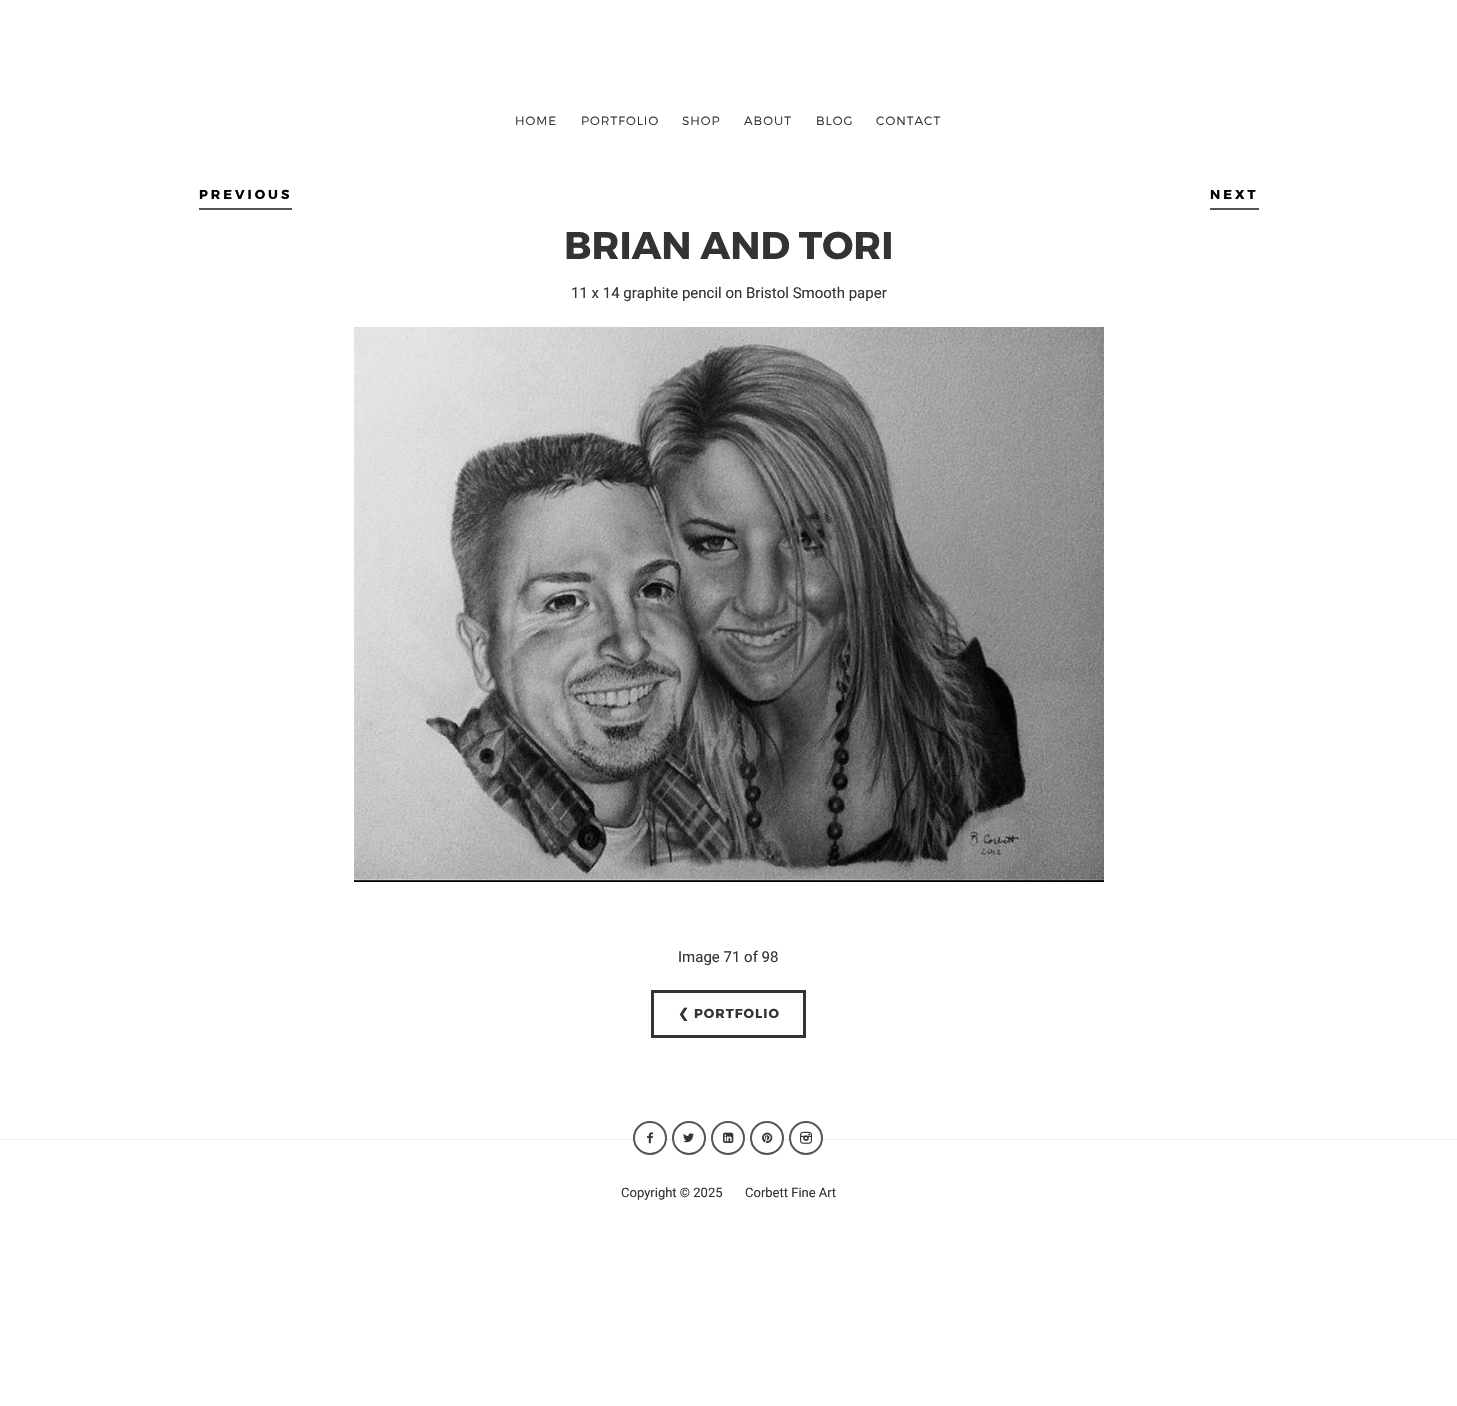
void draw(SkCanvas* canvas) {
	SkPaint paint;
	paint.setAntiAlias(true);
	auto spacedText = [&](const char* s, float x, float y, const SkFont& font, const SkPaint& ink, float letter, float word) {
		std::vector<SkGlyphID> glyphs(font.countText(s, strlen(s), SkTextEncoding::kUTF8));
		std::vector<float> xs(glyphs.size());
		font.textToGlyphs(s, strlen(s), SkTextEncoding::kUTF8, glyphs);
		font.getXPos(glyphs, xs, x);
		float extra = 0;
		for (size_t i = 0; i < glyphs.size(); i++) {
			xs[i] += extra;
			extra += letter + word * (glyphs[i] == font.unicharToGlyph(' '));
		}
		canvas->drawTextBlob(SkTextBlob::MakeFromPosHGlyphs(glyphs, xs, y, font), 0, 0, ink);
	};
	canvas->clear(0xffffffff);
	SkFont f1(fontMgr->matchFamilyStyle("Montserrat", SkFontStyle(300, SkFontStyle::kNormal_Width, SkFontStyle::kUpright_Slant)), 12);
	f1.setSubpixel(true);
	paint.setColor(0xff333333);
	spacedText("HOME", 515, 125, f1, paint, 1, 0);
	spacedText("PORTFOLIO", 581, 125, f1, paint, 1, 0);
	spacedText("SHOP", 682, 125, f1, paint, 1, 0);
	spacedText("ABOUT", 744, 125, f1, paint, 1, 0);
	spacedText("BLOG", 816, 125, f1, paint, 1, 0);
	spacedText("CONTACT", 876, 125, f1, paint, 1, 0);
	paint.setColor(0xff555555);
	canvas->drawRect(SkRect::MakeXYWH(199, 208, 93, 2), paint);
	SkFont f2(fontMgr->matchFamilyStyle("Montserrat", SkFontStyle::Bold()), 13);
	f2.setSubpixel(true);
	paint.setColor(0xff000000);
	spacedText("PREVIOUS", 199, 199, f2, paint, 3, 0);
	paint.setColor(0xff555555);
	canvas->drawRect(SkRect::MakeXYWH(1210, 208, 49, 2), paint);
	paint.setColor(0xff000000);
	spacedText("NEXT", 1210, 199, f2, paint, 3, 0);
	SkFont f3(fontMgr->matchFamilyStyle("Montserrat", SkFontStyle::Bold()), 38.5);
	f3.setSubpixel(true);
	paint.setColor(0xff333333);
	canvas->drawString("BRIAN AND TORI", 564, 259, f3, paint);
	SkFont f4(fontMgr->matchFamilyStyle("Roboto", SkFontStyle::Normal()), 15);
	f4.setSubpixel(true);
	canvas->drawString("11 x 14 graphite pencil on Bristol Smooth paper", 571, 298, f4, paint);
	canvas->drawImageRect(SkImages::DeferredFromEncodedData(SkData::MakeFromFileName("img1.png")), SkRect::MakeXYWH(354, 327, 750, 555), SkSamplingOptions());
	canvas->drawString("Image 71 of 98", 678, 962, f4, paint);
	paint.setStroke(true);
	paint.setStrokeWidth(3);
	canvas->drawRect(SkRect::MakeXYWH(652.5, 991.5, 152, 45), paint);
	SkFont f5(fontMgr->matchFamilyStyle("DejaVu Sans", SkFontStyle::Bold()), 13);
	f5.setSubpixel(true);
	paint.setStroke(false);
	spacedText("❮", 678, 1018, f5, paint, 1, 0);
	spacedText("PORTFOLIO", 694, 1018, f2, paint, 1, 0);
	paint.setColor(0xffeeeeee);
	canvas->drawRect(SkRect::MakeXYWH(0, 1139, 1457, 1), paint);
	paint.setColor(0xffffffff);
	canvas->drawCircle(650, 1138, 16, paint);
	paint.setStroke(true);
	paint.setStrokeWidth(2);
	paint.setColor(0xff555555);
	canvas->drawCircle(650, 1138, 16, paint);
	canvas->drawImageRect(SkImages::DeferredFromEncodedData(SkData::MakeFromFileName("img2.png")), SkRect::MakeXYWH(647, 1132, 6, 12), SkSamplingOptions());
	paint.setStroke(false);
	paint.setColor(0xffffffff);
	canvas->drawCircle(689, 1138, 16, paint);
	paint.setStroke(true);
	paint.setColor(0xff555555);
	canvas->drawCircle(689, 1138, 16, paint);
	canvas->drawImageRect(SkImages::DeferredFromEncodedData(SkData::MakeFromFileName("img3.png")), SkRect::MakeXYWH(683, 1133, 11, 10), SkSamplingOptions());
	paint.setStroke(false);
	paint.setColor(0xffffffff);
	canvas->drawCircle(728, 1138, 16, paint);
	paint.setStroke(true);
	paint.setColor(0xff555555);
	canvas->drawCircle(728, 1138, 16, paint);
	canvas->drawImageRect(SkImages::DeferredFromEncodedData(SkData::MakeFromFileName("img4.png")), SkRect::MakeXYWH(723, 1132, 11, 11), SkSamplingOptions());
	paint.setStroke(false);
	paint.setColor(0xffffffff);
	canvas->drawCircle(767, 1138, 16, paint);
	paint.setStroke(true);
	paint.setColor(0xff555555);
	canvas->drawCircle(767, 1138, 16, paint);
	canvas->drawImageRect(SkImages::DeferredFromEncodedData(SkData::MakeFromFileName("img5.png")), SkRect::MakeXYWH(762, 1132, 11, 11), SkSamplingOptions());
	paint.setStroke(false);
	paint.setColor(0xffffffff);
	canvas->drawCircle(806, 1138, 16, paint);
	paint.setStroke(true);
	paint.setColor(0xff555555);
	canvas->drawCircle(806, 1138, 16, paint);
	canvas->drawImageRect(SkImages::DeferredFromEncodedData(SkData::MakeFromFileName("img6.png")), SkRect::MakeXYWH(800, 1131, 12, 13), SkSamplingOptions());
	SkFont f6(fontMgr->matchFamilyStyle("Roboto", SkFontStyle::Normal()), 13);
	f6.setSubpixel(true);
	paint.setStroke(false);
	paint.setColor(0xff333333);
	canvas->drawString("Copyright © 2025", 621, 1197, f6, paint);
	canvas->drawString("Corbett Fine Art", 745, 1197, f6, paint);
}
